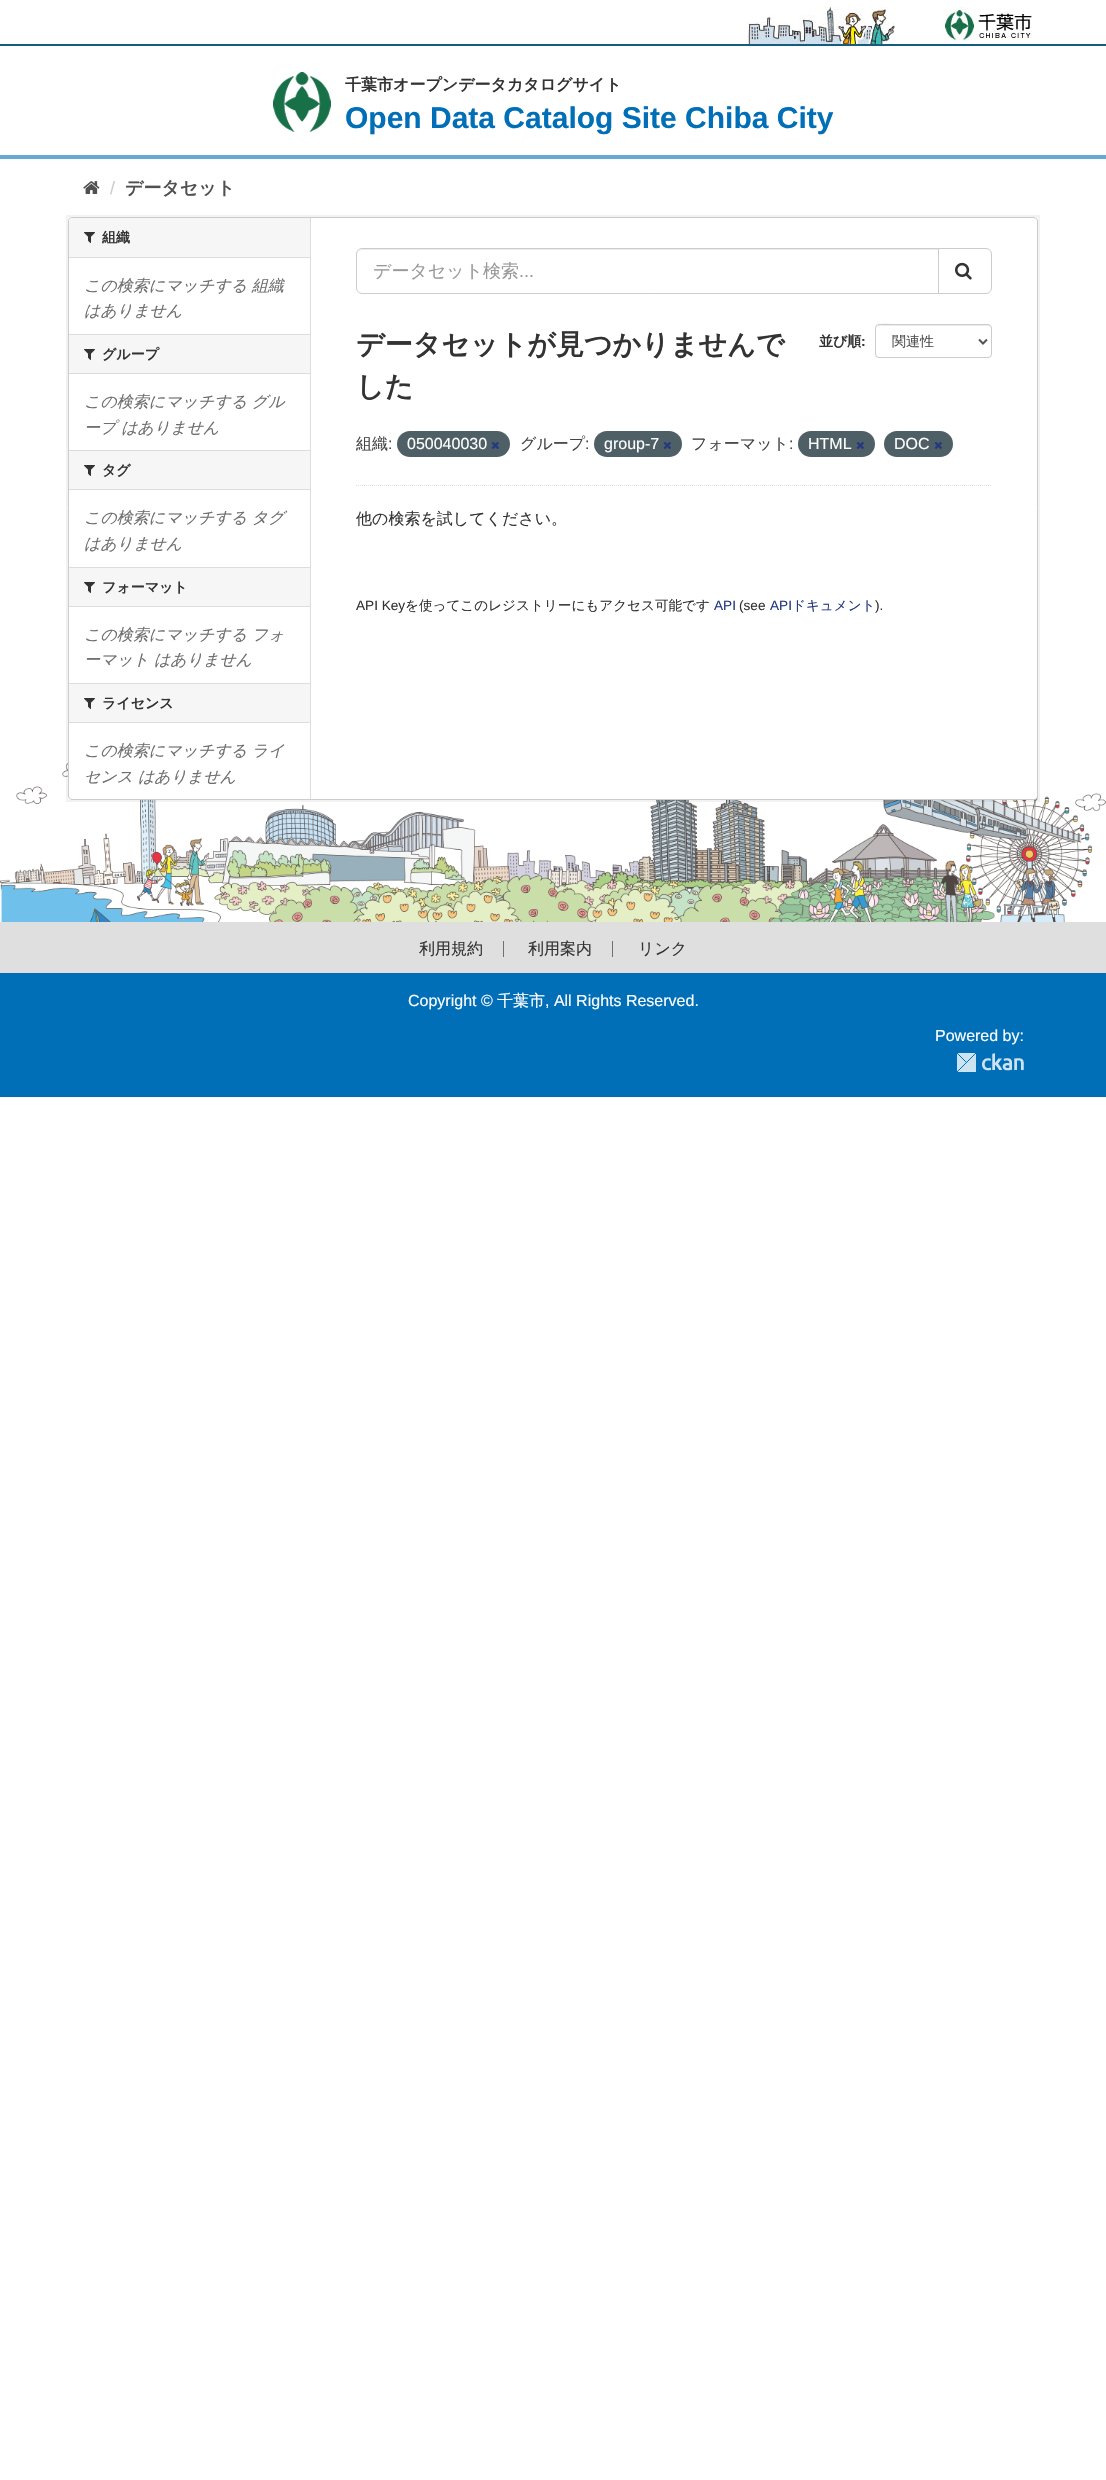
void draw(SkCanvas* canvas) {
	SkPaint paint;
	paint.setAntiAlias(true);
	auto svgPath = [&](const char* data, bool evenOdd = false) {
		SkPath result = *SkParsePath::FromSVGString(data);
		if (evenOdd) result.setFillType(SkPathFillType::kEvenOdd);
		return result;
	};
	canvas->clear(0xffffffff);
	paint.setColor(0xff165c7e);
	canvas->drawRect(SkRect::MakeXYWH(0, 44, 1106, 2), paint);
	canvas->drawImageRect(SkImages::DeferredFromEncodedData(SkData::MakeFromFileName("img1.png")), SkRect::MakeXYWH(746, 7, 149, 37), SkSamplingOptions());
	canvas->drawImageRect(SkImages::DeferredFromEncodedData(SkData::MakeFromFileName("img2.png")), SkRect::MakeXYWH(945, 7, 87, 36), SkSamplingOptions());
	canvas->drawImageRect(SkImages::DeferredFromEncodedData(SkData::MakeFromFileName("img3.png")), SkRect::MakeXYWH(0, 763, 1106, 159), SkSamplingOptions());
	paint.setColor(0xff66a9d4);
	canvas->drawRect(SkRect::MakeXYWH(0, 155, 1106, 4), paint);
	canvas->drawImageRect(SkImages::DeferredFromEncodedData(SkData::MakeFromFileName("img4.png")), SkRect::MakeXYWH(273, 72, 58, 60), SkSamplingOptions());
	SkFont f1(fontMgr->matchFamilyStyle("WenQuanYi Zen Hei", SkFontStyle::Bold()), 16);
	f1.setSubpixel(true);
	paint.setColor(0xff333333);
	canvas->drawString("千葉市オープンデータカタログサイト", 345, 90, f1, paint);
	SkFont f2(fontMgr->matchFamilyStyle("Liberation Sans", SkFontStyle::Bold()), 30);
	f2.setSubpixel(true);
	paint.setColor(0xff006fb7);
	canvas->drawString("Open Data Catalog Site Chiba City", 345, 128, f2, paint);
	canvas->drawImageRect(SkImages::DeferredFromEncodedData(SkData::MakeFromFileName("img5.png")), SkRect::MakeXYWH(83, 181, 17, 13), SkSamplingOptions());
	SkFont f3(fontMgr->matchFamilyStyle("Liberation Sans", SkFontStyle::Normal()), 18);
	f3.setSubpixel(true);
	paint.setColor(0xffcccccc);
	canvas->drawString("/", 110, 194, f3, paint);
	SkFont f4(fontMgr->matchFamilyStyle("WenQuanYi Zen Hei", SkFontStyle::Bold()), 18);
	f4.setSubpixel(true);
	paint.setColor(0xff505050);
	canvas->drawString("データセット", 125, 194, f4, paint);
	paint.setStroke(true);
	paint.setStrokeWidth(2);
	paint.setColor(0x0d000000);
	canvas->drawRect(SkRect::MakeXYWH(67, 216, 972, 585), paint);
	paint.setStroke(false);
	paint.setColor(0xffffffff);
	canvas->drawRoundRect(SkRect::MakeXYWH(68.5, 217.5, 969, 582), 3.5, 3.5, paint);
	paint.setStroke(true);
	paint.setStrokeWidth(1);
	paint.setColor(0xffcccccc);
	canvas->drawRoundRect(SkRect::MakeXYWH(68.5, 217.5, 969, 582), 3.5, 3.5, paint);
	paint.setStroke(false);
	paint.setColor(0xfff6f6f6);
	canvas->drawPath(svgPath("M72 218H310V258H69V221C69 219.5 70.5 218 72 218Z"), paint);
	paint.setColor(0xffdddddd);
	canvas->drawRect(SkRect::MakeXYWH(69, 257, 241, 1), paint);
	canvas->drawImageRect(SkImages::DeferredFromEncodedData(SkData::MakeFromFileName("img6.png")), SkRect::MakeXYWH(84, 232, 11, 11), SkSamplingOptions());
	SkFont f5(fontMgr->matchFamilyStyle("WenQuanYi Zen Hei", SkFontStyle::Bold()), 14);
	f5.setSubpixel(true);
	paint.setColor(0xff333333);
	canvas->drawString("組織", 102, 242, f5, paint);
	SkFont f6(fontMgr->matchFamilyStyle("WenQuanYi Zen Hei", SkFontStyle(500, SkFontStyle::kNormal_Width, SkFontStyle::kItalic_Slant)), 16);
	f6.setSubpixel(true);
	paint.setColor(0xff6e6e6e);
	canvas->drawString("この検索にマッチする 組織", 84, 291, f6, paint);
	canvas->drawString("はありません", 84, 316, f6, paint);
	paint.setColor(0xfff6f6f6);
	canvas->drawRect(SkRect::MakeXYWH(69, 335, 241, 38), paint);
	paint.setColor(0xffdddddd);
	canvas->drawRect(SkRect::MakeXYWH(69, 334, 241, 1), paint);
	canvas->drawRect(SkRect::MakeXYWH(69, 373, 241, 1), paint);
	canvas->drawImageRect(SkImages::DeferredFromEncodedData(SkData::MakeFromFileName("img6.png")), SkRect::MakeXYWH(84, 349, 11, 11), SkSamplingOptions());
	paint.setColor(0xff333333);
	canvas->drawString("グループ", 102, 359, f5, paint);
	paint.setColor(0xff6e6e6e);
	canvas->drawString("この検索にマッチする グル", 84, 407, f6, paint);
	canvas->drawString("ープ はありません", 84, 433, f6, paint);
	paint.setColor(0xfff6f6f6);
	canvas->drawRect(SkRect::MakeXYWH(69, 451, 241, 38), paint);
	paint.setColor(0xffdddddd);
	canvas->drawRect(SkRect::MakeXYWH(69, 450, 241, 1), paint);
	canvas->drawRect(SkRect::MakeXYWH(69, 489, 241, 1), paint);
	canvas->drawImageRect(SkImages::DeferredFromEncodedData(SkData::MakeFromFileName("img6.png")), SkRect::MakeXYWH(84, 465, 11, 11), SkSamplingOptions());
	paint.setColor(0xff333333);
	canvas->drawString("タグ", 102, 475, f5, paint);
	paint.setColor(0xff6e6e6e);
	canvas->drawString("この検索にマッチする タグ", 84, 523, f6, paint);
	canvas->drawString("はありません", 84, 549, f6, paint);
	paint.setColor(0xfff6f6f6);
	canvas->drawRect(SkRect::MakeXYWH(69, 568, 241, 38), paint);
	paint.setColor(0xffdddddd);
	canvas->drawRect(SkRect::MakeXYWH(69, 567, 241, 1), paint);
	canvas->drawRect(SkRect::MakeXYWH(69, 606, 241, 1), paint);
	canvas->drawImageRect(SkImages::DeferredFromEncodedData(SkData::MakeFromFileName("img6.png")), SkRect::MakeXYWH(84, 582, 11, 11), SkSamplingOptions());
	paint.setColor(0xff333333);
	canvas->drawString("フォーマット", 102, 592, f5, paint);
	paint.setColor(0xff6e6e6e);
	canvas->drawString("この検索にマッチする フォ", 84, 640, f6, paint);
	canvas->drawString("ーマット はありません", 84, 665, f6, paint);
	paint.setColor(0xfff6f6f6);
	canvas->drawRect(SkRect::MakeXYWH(69, 684, 241, 38), paint);
	paint.setColor(0xffdddddd);
	canvas->drawRect(SkRect::MakeXYWH(69, 683, 241, 1), paint);
	canvas->drawRect(SkRect::MakeXYWH(69, 722, 241, 1), paint);
	canvas->drawImageRect(SkImages::DeferredFromEncodedData(SkData::MakeFromFileName("img6.png")), SkRect::MakeXYWH(84, 698, 11, 11), SkSamplingOptions());
	paint.setColor(0xff333333);
	canvas->drawString("ライセンス", 102, 708, f5, paint);
	paint.setColor(0xff6e6e6e);
	canvas->drawString("この検索にマッチする ライ", 84, 756, f6, paint);
	canvas->drawString("センス はありません", 84, 782, f6, paint);
	paint.setColor(0xffdddddd);
	canvas->drawRect(SkRect::MakeXYWH(310, 218, 1, 581), paint);
	paint.setStroke(true);
	paint.setPathEffect(SkDashPathEffect::Make({{1, 1}}, 0));
	canvas->drawPath(svgPath("M356 485.5H992"), paint);
	paint.setPathEffect(nullptr);
	paint.setStroke(false);
	paint.setColor(0xffececec);
	canvas->drawPath(svgPath("M362 250H938V249H362C359 249 357 252 357 255C357 252 359 250 362 250Z"), paint);
	paint.setStroke(true);
	paint.setColor(0xffcccccc);
	canvas->drawPath(svgPath("M362 248.5H938.5V293.5H362C359 293.5 356.5 291 356.5 288V254C356.5 251 359 248.5 362 248.5Z"), paint);
	SkFont f7(fontMgr->matchFamilyStyle("WenQuanYi Zen Hei", SkFontStyle(500, SkFontStyle::kNormal_Width, SkFontStyle::kUpright_Slant)), 18);
	f7.setSubpixel(true);
	paint.setStroke(false);
	paint.setColor(0xff999999);
	canvas->drawString("データセット検索", 373, 277, f7, paint);
	canvas->drawString("...", 519, 277, f3, paint);
	paint.setColor(0xffffffff);
	canvas->drawPath(svgPath("M938.5 248.5H986C989 248.5 991.5 251 991.5 254V288C991.5 291 989 293.5 986 293.5H938.5Z"), paint);
	paint.setStroke(true);
	paint.setColor(0xffcccccc);
	canvas->drawPath(svgPath("M938.5 248.5H986C989 248.5 991.5 251 991.5 254V288C991.5 291 989 293.5 986 293.5H938.5Z"), paint);
	canvas->drawImageRect(SkImages::DeferredFromEncodedData(SkData::MakeFromFileName("img7.png")), SkRect::MakeXYWH(955, 262, 17, 18), SkSamplingOptions());
	SkFont f8(fontMgr->matchFamilyStyle("WenQuanYi Zen Hei", SkFontStyle::Bold()), 28);
	f8.setSubpixel(true);
	paint.setStroke(false);
	paint.setColor(0xff333333);
	canvas->drawString("データセットが見つかりませんで", 356, 354, f8, paint);
	canvas->drawString("した", 356, 396, f8, paint);
	canvas->drawString("並び順", 819, 346, f5, paint);
	SkFont f9(fontMgr->matchFamilyStyle("Liberation Sans", SkFontStyle::Bold()), 14);
	f9.setSubpixel(true);
	canvas->drawString(":", 861, 346, f9, paint);
	paint.setColor(0xffececec);
	canvas->drawPath(svgPath("M879 326H988C990 326 991 327 991 329C991 327 990 325 988 325H897C896 325 876 320 876 329C876 327 877 326 879 326Z"), paint);
	paint.setStroke(true);
	paint.setColor(0xffcccccc);
	canvas->drawRoundRect(SkRect::MakeXYWH(875.5, 324.5, 116, 33), 3.5, 3.5, paint);
	paint.setStrokeWidth(2);
	paint.setColor(0xff555555);
	canvas->drawPath(svgPath("M979 339.5L983 343.5L987 339.5"), paint);
	SkFont f10(fontMgr->matchFamilyStyle("WenQuanYi Zen Hei", SkFontStyle(500, SkFontStyle::kNormal_Width, SkFontStyle::kUpright_Slant)), 14);
	f10.setSubpixel(true);
	paint.setStroke(false);
	paint.setColor(0xff505050);
	canvas->drawString("関連性", 892, 346, f10, paint);
	SkFont f11(fontMgr->matchFamilyStyle("WenQuanYi Zen Hei", SkFontStyle(500, SkFontStyle::kNormal_Width, SkFontStyle::kUpright_Slant)), 16);
	f11.setSubpixel(true);
	paint.setColor(0xff444444);
	canvas->drawString("組織", 356, 449, f11, paint);
	SkFont f12(fontMgr->matchFamilyStyle("Liberation Sans", SkFontStyle::Normal()), 16);
	f12.setSubpixel(true);
	canvas->drawString(":", 388, 449, f12, paint);
	paint.setColor(0xff4e5f65);
	canvas->drawRoundRect(SkRect::MakeXYWH(397, 431, 113, 26), 13, 13, paint);
	paint.setColor(0xffffffff);
	canvas->drawString("050040030", 407, 449, f12, paint);
	canvas->drawImageRect(SkImages::DeferredFromEncodedData(SkData::MakeFromFileName("img8.png")), SkRect::MakeXYWH(491, 442, 8, 7), SkSamplingOptions());
	paint.setColor(0xff444444);
	canvas->drawString("グループ", 520, 449, f11, paint);
	canvas->drawString(":", 585, 449, f12, paint);
	paint.setColor(0xff4e5f65);
	canvas->drawRoundRect(SkRect::MakeXYWH(594, 431, 88, 26), 13, 13, paint);
	paint.setColor(0xffffffff);
	canvas->drawString("group-7", 604, 449, f12, paint);
	canvas->drawImageRect(SkImages::DeferredFromEncodedData(SkData::MakeFromFileName("img8.png")), SkRect::MakeXYWH(663, 442, 8, 7), SkSamplingOptions());
	paint.setColor(0xff444444);
	canvas->drawString("フォーマット", 691, 449, f11, paint);
	canvas->drawString(":", 789, 449, f12, paint);
	paint.setColor(0xff4e5f65);
	canvas->drawRoundRect(SkRect::MakeXYWH(798, 431, 77, 26), 13, 13, paint);
	paint.setColor(0xffffffff);
	canvas->drawString("HTML", 808, 449, f12, paint);
	canvas->drawImageRect(SkImages::DeferredFromEncodedData(SkData::MakeFromFileName("img8.png")), SkRect::MakeXYWH(856, 442, 8, 7), SkSamplingOptions());
	paint.setColor(0xff4e5f65);
	canvas->drawRoundRect(SkRect::MakeXYWH(884, 431, 69, 26), 13, 13, paint);
	paint.setColor(0xffffffff);
	canvas->drawString("DOC", 894, 449, f12, paint);
	canvas->drawImageRect(SkImages::DeferredFromEncodedData(SkData::MakeFromFileName("img8.png")), SkRect::MakeXYWH(934, 442, 8, 7), SkSamplingOptions());
	paint.setColor(0xff333333);
	canvas->drawString("他の検索を試してください。", 356, 524, f11, paint);
	SkFont f13(fontMgr->matchFamilyStyle("Liberation Sans", SkFontStyle::Normal()), 13.6);
	f13.setSubpixel(true);
	canvas->drawString("API Key", 356, 610, f13, paint);
	SkFont f14(fontMgr->matchFamilyStyle("WenQuanYi Zen Hei", SkFontStyle(500, SkFontStyle::kNormal_Width, SkFontStyle::kUpright_Slant)), 13.6);
	f14.setSubpixel(true);
	canvas->drawString("を使ってこのレジストリーにもアクセス可能です", 405, 610, f14, paint);
	paint.setColor(0xff24397f);
	canvas->drawString("API", 714, 610, f13, paint);
	paint.setColor(0xff333333);
	canvas->drawString("(see", 739, 610, f13, paint);
	paint.setColor(0xff24397f);
	canvas->drawString("API", 770, 610, f13, paint);
	canvas->drawString("ドキュメント", 792, 610, f14, paint);
	paint.setColor(0xff333333);
	canvas->drawString(").", 875, 610, f13, paint);
	paint.setColor(0xff006fb7);
	canvas->drawRect(SkRect::MakeXYWH(0, 973, 1106, 124), paint);
	paint.setColor(0xffdfdfdf);
	canvas->drawRect(SkRect::MakeXYWH(0, 922, 1106, 51), paint);
	paint.setColor(0xff707070);
	canvas->drawRect(SkRect::MakeXYWH(503, 941, 1, 16), paint);
	paint.setColor(0xff333333);
	canvas->drawString("利用規約", 419, 954, f11, paint);
	paint.setColor(0xff707070);
	canvas->drawRect(SkRect::MakeXYWH(612, 941, 1, 16), paint);
	paint.setColor(0xff333333);
	canvas->drawString("利用案内", 528, 954, f11, paint);
	canvas->drawString("リンク", 638, 954, f11, paint);
	paint.setColor(0xffffffff);
	canvas->drawString("Copyright ©", 408, 1006, f12, paint);
	canvas->drawString("千葉市", 497, 1006, f11, paint);
	canvas->drawString(", All Rights Reserved.", 545, 1006, f12, paint);
	canvas->drawString("Powered by:", 935, 1041, f12, paint);
	canvas->drawImageRect(SkImages::DeferredFromEncodedData(SkData::MakeFromFileName("img9.png")), SkRect::MakeXYWH(957, 1053, 67, 19), SkSamplingOptions());
}
